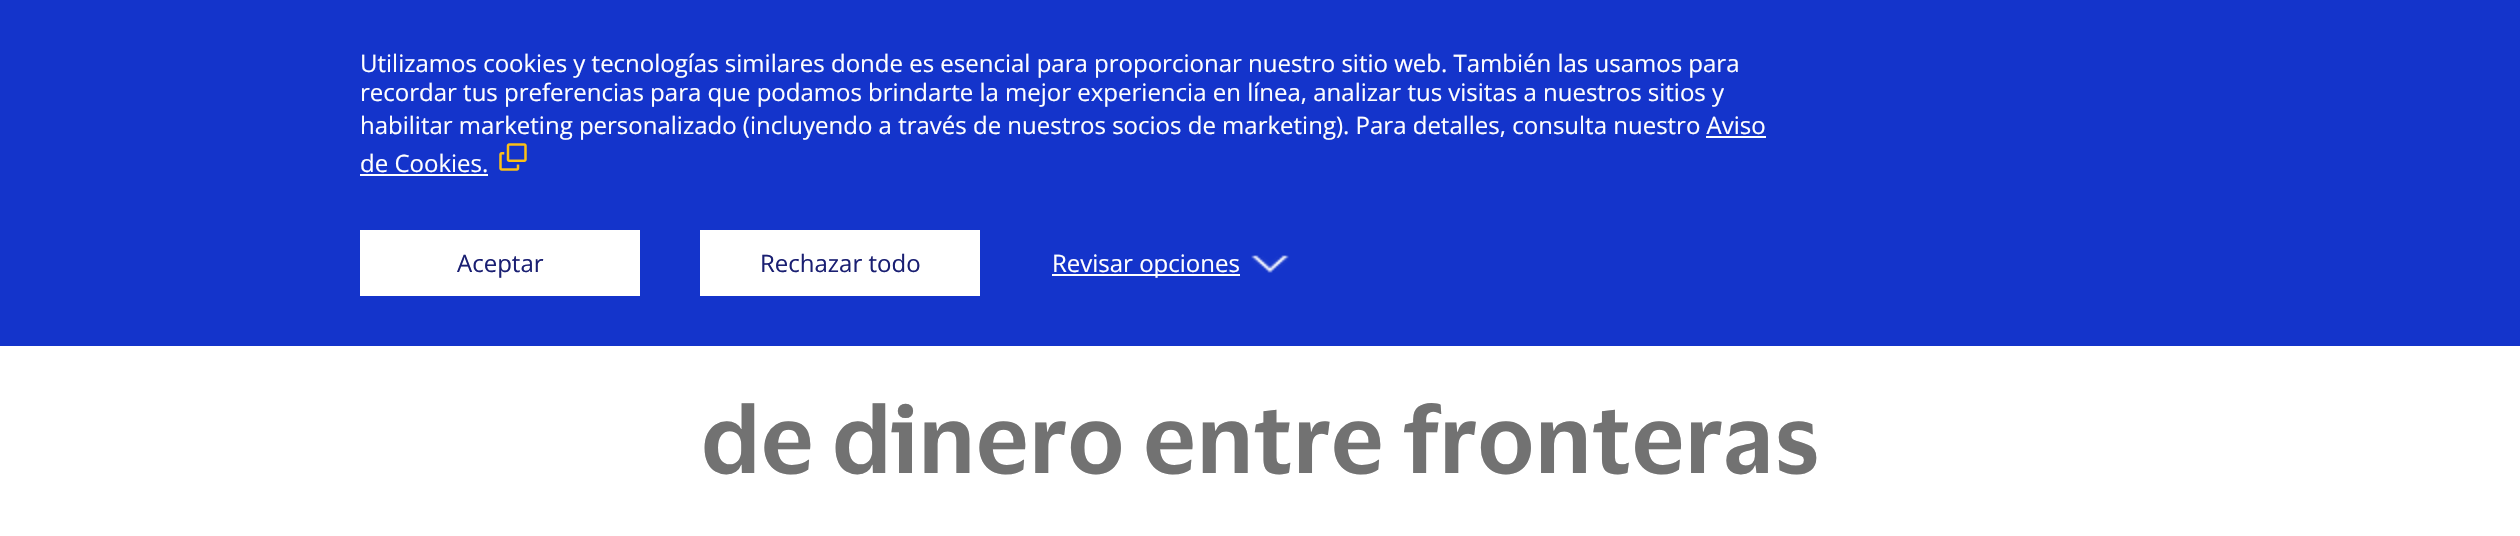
void draw(SkCanvas* canvas) {
	SkPaint paint;
	paint.setAntiAlias(true);
	canvas->clear(0xffffffff);
	paint.setColor(0xff1434cb);
	canvas->drawRect(SkRect::MakeXYWH(0, 0, 2520, 346), paint);
	SkFont f1(fontMgr->matchFamilyStyle("Open Sans", SkFontStyle::Normal()), 24);
	f1.setSubpixel(true);
	paint.setColor(0xffffffff);
	canvas->drawString("Utilizamos cookies y tecnologías similares donde es esencial para proporcionar nuestro sitio web. También las usamos para", 360, 72, f1, paint);
	canvas->drawString("recordar tus preferencias para que podamos brindarte la mejor experiencia en línea, analizar tus visitas a nuestros sitios y", 360, 101, f1, paint);
	canvas->drawString("habilitar marketing personalizado (incluyendo a través de nuestros socios de marketing). Para detalles, consulta nuestro Aviso", 360, 134, f1, paint);
	canvas->drawString("de Cookies.", 360, 172, f1, paint);
	canvas->drawRect(SkRect::MakeXYWH(1706, 136, 60, 2), paint);
	canvas->drawRect(SkRect::MakeXYWH(360, 174, 128, 2), paint);
	canvas->drawImageRect(SkImages::DeferredFromEncodedData(SkData::MakeFromFileName("img1.png")), SkRect::MakeXYWH(499, 143, 28, 28), SkSamplingOptions());
	canvas->drawRect(SkRect::MakeXYWH(360, 230, 280, 66), paint);
	paint.setColor(0xff1a1f72);
	canvas->drawString("Aceptar", 457, 272, f1, paint);
	paint.setColor(0xffffffff);
	canvas->drawRect(SkRect::MakeXYWH(700, 230, 280, 66), paint);
	paint.setColor(0xff1a1f72);
	canvas->drawString("Rechazar todo", 760, 272, f1, paint);
	paint.setColor(0xffffffff);
	canvas->drawRect(SkRect::MakeXYWH(1052, 274, 188, 2), paint);
	canvas->drawString("Revisar opciones", 1052, 272, f1, paint);
	canvas->drawImageRect(SkImages::DeferredFromEncodedData(SkData::MakeFromFileName("img2.png")), SkRect::MakeXYWH(1251, 255, 38, 18), SkSamplingOptions());
	SkFont f2(fontMgr->matchFamilyStyle("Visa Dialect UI", SkFontStyle(600, SkFontStyle::kNormal_Width, SkFontStyle::kUpright_Slant)), 94);
	f2.setSubpixel(true);
	paint.setColor(0xff727272);
	canvas->drawString("de dinero entre fronteras", 701, 473, f2, paint);
}
